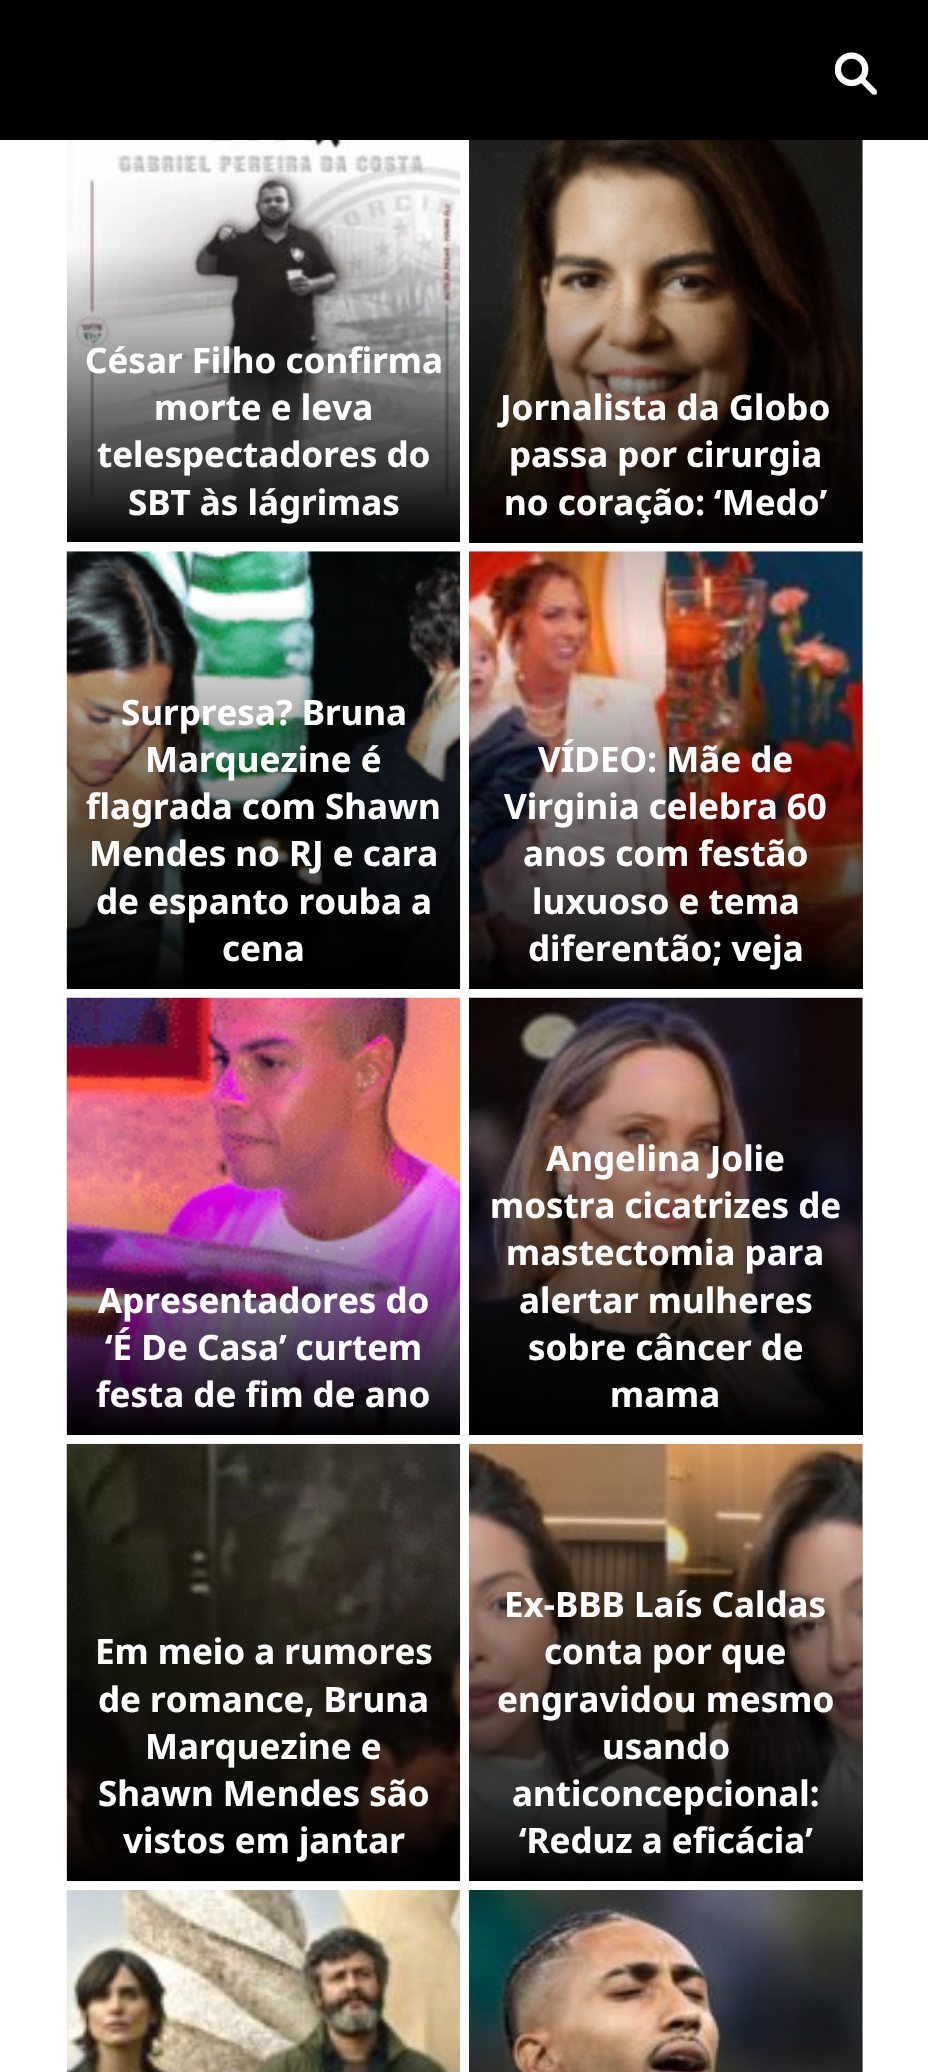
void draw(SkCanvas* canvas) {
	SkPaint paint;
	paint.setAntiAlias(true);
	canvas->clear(0xffffffff);
	paint.setColor(0xff000000);
	canvas->drawRect(SkRect::MakeXYWH(0, 0, 928, 140), paint);
	canvas->drawImageRect(SkImages::DeferredFromEncodedData(SkData::MakeFromFileName("img1.png")), SkRect::MakeXYWH(835, 52, 42, 43), SkSamplingOptions());
	canvas->drawImageRect(SkImages::DeferredFromEncodedData(SkData::MakeFromFileName("img2.png")), SkRect::MakeXYWH(67, 140, 393, 402), SkSamplingOptions());
	SkFont f1(fontMgr->matchFamilyStyle("Noto Sans", SkFontStyle::Bold()), 35);
	f1.setSubpixel(true);
	paint.setColor(0xffffffff);
	canvas->drawString("César Filho confirma", 85, 373, f1, paint);
	canvas->drawString("morte e leva", 154, 420, f1, paint);
	canvas->drawString("telespectadores do", 97, 467, f1, paint);
	canvas->drawString("SBT às lágrimas", 128, 515, f1, paint);
	canvas->drawImageRect(SkImages::DeferredFromEncodedData(SkData::MakeFromFileName("img3.png")), SkRect::MakeXYWH(469, 140, 394, 402), SkSamplingOptions());
	{
		const SkColor colors[] = {0x00000000, 0xff000000};
		const float stops[] = {0, 1};
		const SkPoint ends[] = {{666, 296}, {666, 543}};
		paint.setShader(SkGradientShader::MakeLinear(ends, colors, stops, 2, SkTileMode::kClamp));
		paint.setAlpha(255);
	}
	canvas->drawRect(SkRect::MakeXYWH(469, 301, 394, 242), paint);
	paint.setShader(nullptr);
	paint.setColor(0xffffffff);
	canvas->drawString("Jornalista da Globo", 500, 420, f1, paint);
	canvas->drawString("passa por cirurgia", 509, 467, f1, paint);
	canvas->drawString("no coração: ‘Medo’", 504, 515, f1, paint);
	canvas->drawImageRect(SkImages::DeferredFromEncodedData(SkData::MakeFromFileName("img4.png")), SkRect::MakeXYWH(66, 551, 395, 438), SkSamplingOptions());
	{
		const SkColor colors[] = {0x00000000, 0xff000000};
		const float stops[] = {0, 1};
		const SkPoint ends[] = {{263, 600}, {263, 989}};
		paint.setShader(SkGradientShader::MakeLinear(ends, colors, stops, 2, SkTileMode::kClamp));
		paint.setAlpha(255);
	}
	canvas->drawRect(SkRect::MakeXYWH(67, 608, 393, 381), paint);
	paint.setShader(nullptr);
	paint.setColor(0xffffffff);
	canvas->drawString("Surpresa? Bruna", 121, 725, f1, paint);
	canvas->drawString("Marquezine é", 145, 772, f1, paint);
	canvas->drawString("flagrada com Shawn", 86, 819, f1, paint);
	canvas->drawString("Mendes no RJ e cara", 89, 866, f1, paint);
	canvas->drawString("de espanto rouba a", 96, 914, f1, paint);
	canvas->drawString("cena", 222, 961, f1, paint);
	canvas->drawImageRect(SkImages::DeferredFromEncodedData(SkData::MakeFromFileName("img5.png")), SkRect::MakeXYWH(469, 551, 394, 436), SkSamplingOptions());
	{
		const SkColor colors[] = {0x00000000, 0xff000000};
		const float stops[] = {0, 1};
		const SkPoint ends[] = {{666, 648}, {666, 989}};
		paint.setShader(SkGradientShader::MakeLinear(ends, colors, stops, 2, SkTileMode::kClamp));
		paint.setAlpha(255);
	}
	canvas->drawRect(SkRect::MakeXYWH(469, 655, 394, 334), paint);
	paint.setShader(nullptr);
	paint.setColor(0xffffffff);
	canvas->drawString("VÍDEO: Mãe de", 538, 772, f1, paint);
	canvas->drawString("Virginia celebra 60", 504, 819, f1, paint);
	canvas->drawString("anos com festão", 523, 866, f1, paint);
	canvas->drawString("luxuoso e tema", 532, 914, f1, paint);
	canvas->drawString("diferentão; veja", 528, 961, f1, paint);
	canvas->drawImageRect(SkImages::DeferredFromEncodedData(SkData::MakeFromFileName("img6.png")), SkRect::MakeXYWH(66, 997, 395, 438), SkSamplingOptions());
	canvas->drawString("Apresentadores do", 98, 1313, f1, paint);
	canvas->drawString("‘É De Casa’ curtem", 105, 1360, f1, paint);
	canvas->drawString("festa de fim de ano", 96, 1407, f1, paint);
	canvas->drawImageRect(SkImages::DeferredFromEncodedData(SkData::MakeFromFileName("img7.png")), SkRect::MakeXYWH(469, 997, 394, 436), SkSamplingOptions());
	{
		const SkColor colors[] = {0x00000000, 0xff000000};
		const float stops[] = {0, 1};
		const SkPoint ends[] = {{666, 1047}, {666, 1435}};
		paint.setShader(SkGradientShader::MakeLinear(ends, colors, stops, 2, SkTileMode::kClamp));
		paint.setAlpha(255);
	}
	canvas->drawRect(SkRect::MakeXYWH(469, 1055, 394, 380), paint);
	paint.setShader(nullptr);
	paint.setColor(0xffffffff);
	canvas->drawString("Angelina Jolie", 546, 1171, f1, paint);
	canvas->drawString("mostra cicatrizes de", 490, 1218, f1, paint);
	canvas->drawString("mastectomia para", 506, 1265, f1, paint);
	canvas->drawString("alertar mulheres", 519, 1313, f1, paint);
	canvas->drawString("sobre câncer de", 528, 1360, f1, paint);
	canvas->drawString("mama", 610, 1407, f1, paint);
	canvas->drawImageRect(SkImages::DeferredFromEncodedData(SkData::MakeFromFileName("img8.png")), SkRect::MakeXYWH(66, 1443, 395, 439), SkSamplingOptions());
	canvas->drawString("Em meio a rumores", 95, 1664, f1, paint);
	canvas->drawString("de romance, Bruna", 98, 1712, f1, paint);
	canvas->drawString("Marquezine e", 145, 1759, f1, paint);
	canvas->drawString("Shawn Mendes são", 98, 1806, f1, paint);
	canvas->drawString("vistos em jantar", 123, 1853, f1, paint);
	canvas->drawImageRect(SkImages::DeferredFromEncodedData(SkData::MakeFromFileName("img9.png")), SkRect::MakeXYWH(469, 1443, 394, 439), SkSamplingOptions());
	{
		const SkColor colors[] = {0x00000000, 0xff000000};
		const float stops[] = {0, 1};
		const SkPoint ends[] = {{666, 1493}, {666, 1881}};
		paint.setShader(SkGradientShader::MakeLinear(ends, colors, stops, 2, SkTileMode::kClamp));
		paint.setAlpha(255);
	}
	canvas->drawRect(SkRect::MakeXYWH(469, 1501, 394, 380), paint);
	paint.setShader(nullptr);
	paint.setColor(0xffffffff);
	canvas->drawString("Ex-BBB Laís Caldas", 504, 1617, f1, paint);
	canvas->drawString("conta por que", 544, 1664, f1, paint);
	canvas->drawString("engravidou mesmo", 497, 1712, f1, paint);
	canvas->drawString("usando", 602, 1759, f1, paint);
	canvas->drawString("anticoncepcional:", 512, 1806, f1, paint);
	canvas->drawString("‘Reduz a eficácia’", 519, 1853, f1, paint);
	canvas->drawImageRect(SkImages::DeferredFromEncodedData(SkData::MakeFromFileName("img10.png")), SkRect::MakeXYWH(66, 1890, 395, 182), SkSamplingOptions());
	canvas->drawImageRect(SkImages::DeferredFromEncodedData(SkData::MakeFromFileName("img11.png")), SkRect::MakeXYWH(469, 1890, 394, 182), SkSamplingOptions());
	{
		const SkColor colors[] = {0x00000000, 0xff000000};
		const float stops[] = {0, 1};
		const SkPoint ends[] = {{666, 2034}, {666, 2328}};
		paint.setShader(SkGradientShader::MakeLinear(ends, colors, stops, 2, SkTileMode::kClamp));
		paint.setAlpha(255);
	}
	canvas->drawRect(SkRect::MakeXYWH(469, 2040, 394, 32), paint);
}
